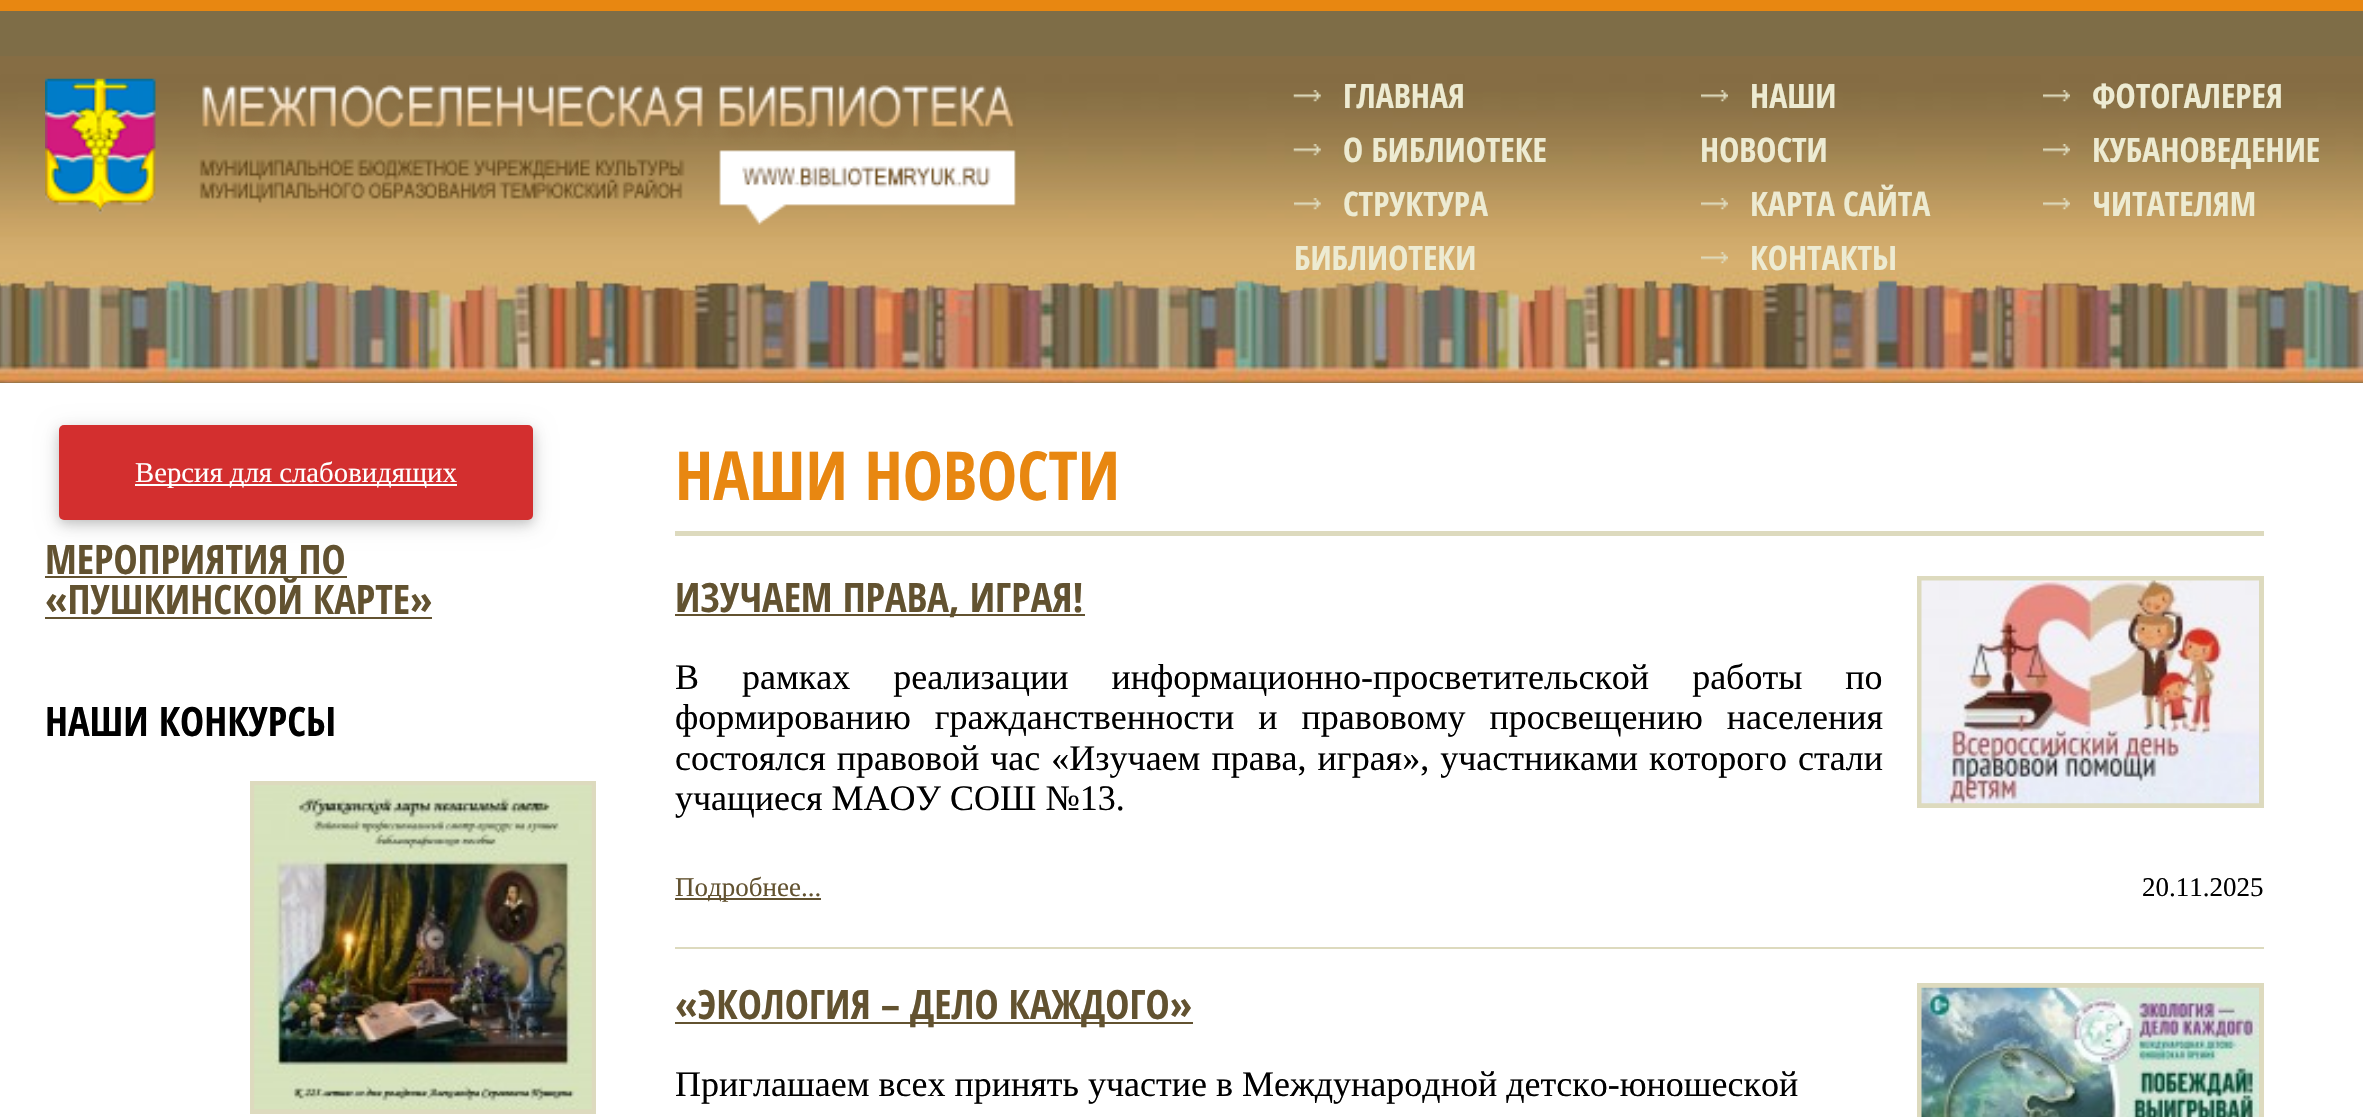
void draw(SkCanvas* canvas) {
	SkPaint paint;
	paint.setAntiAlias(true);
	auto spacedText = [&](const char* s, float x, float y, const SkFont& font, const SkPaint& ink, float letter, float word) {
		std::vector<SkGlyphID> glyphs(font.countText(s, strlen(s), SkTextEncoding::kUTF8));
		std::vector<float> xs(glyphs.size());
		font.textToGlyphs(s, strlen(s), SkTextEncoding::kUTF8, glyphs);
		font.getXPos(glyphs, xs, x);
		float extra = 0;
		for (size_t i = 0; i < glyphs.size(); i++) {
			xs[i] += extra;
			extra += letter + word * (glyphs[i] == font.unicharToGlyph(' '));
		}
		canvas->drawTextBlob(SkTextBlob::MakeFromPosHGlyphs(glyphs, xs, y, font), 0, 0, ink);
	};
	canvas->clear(0xffe88711);
	paint.setColor(0xff7e6d47);
	canvas->drawRect(SkRect::MakeXYWH(0, 11, 2363, 372), paint);
	canvas->drawImageRect(SkImages::DeferredFromEncodedData(SkData::MakeFromFileName("img1.png")), SkRect::MakeXYWH(0, 56, 2363, 327), SkSamplingOptions());
	canvas->drawImageRect(SkImages::DeferredFromEncodedData(SkData::MakeFromFileName("img2.png")), SkRect::MakeXYWH(45, 78, 971, 147), SkSamplingOptions());
	canvas->drawImageRect(SkImages::DeferredFromEncodedData(SkData::MakeFromFileName("img3.png")), SkRect::MakeXYWH(1293, 90, 28, 12), SkSamplingOptions());
	SkFont f1(fontMgr->matchFamilyStyle("Open Sans Condensed", SkFontStyle::Bold()), 33.75);
	f1.setSubpixel(true);
	paint.setColor(0xffedebd2);
	canvas->drawString("ГЛАВНАЯ", 1343, 108, f1, paint);
	canvas->drawImageRect(SkImages::DeferredFromEncodedData(SkData::MakeFromFileName("img4.png")), SkRect::MakeXYWH(1293, 144, 28, 12), SkSamplingOptions());
	canvas->drawString("О БИБЛИОТЕКЕ", 1343, 162, f1, paint);
	canvas->drawImageRect(SkImages::DeferredFromEncodedData(SkData::MakeFromFileName("img5.png")), SkRect::MakeXYWH(1294, 198, 27, 12), SkSamplingOptions());
	canvas->drawString("СТРУКТУРА", 1343, 216, f1, paint);
	canvas->drawString("БИБЛИОТЕКИ", 1294, 270, f1, paint);
	canvas->drawImageRect(SkImages::DeferredFromEncodedData(SkData::MakeFromFileName("img6.png")), SkRect::MakeXYWH(1701, 90, 27, 12), SkSamplingOptions());
	canvas->drawString("НАШИ", 1750, 108, f1, paint);
	canvas->drawString("НОВОСТИ", 1700, 162, f1, paint);
	canvas->drawImageRect(SkImages::DeferredFromEncodedData(SkData::MakeFromFileName("img7.png")), SkRect::MakeXYWH(1701, 198, 27, 12), SkSamplingOptions());
	canvas->drawString("КАРТА САЙТА", 1750, 216, f1, paint);
	canvas->drawImageRect(SkImages::DeferredFromEncodedData(SkData::MakeFromFileName("img8.png")), SkRect::MakeXYWH(1701, 252, 27, 12), SkSamplingOptions());
	canvas->drawString("КОНТАКТЫ", 1750, 270, f1, paint);
	canvas->drawImageRect(SkImages::DeferredFromEncodedData(SkData::MakeFromFileName("img9.png")), SkRect::MakeXYWH(2043, 90, 27, 12), SkSamplingOptions());
	canvas->drawString("ФОТОГАЛЕРЕЯ", 2092, 108, f1, paint);
	canvas->drawImageRect(SkImages::DeferredFromEncodedData(SkData::MakeFromFileName("img10.png")), SkRect::MakeXYWH(2043, 144, 27, 12), SkSamplingOptions());
	canvas->drawString("КУБАНОВЕДЕНИЕ", 2092, 162, f1, paint);
	canvas->drawImageRect(SkImages::DeferredFromEncodedData(SkData::MakeFromFileName("img7.png")), SkRect::MakeXYWH(2043, 198, 27, 12), SkSamplingOptions());
	canvas->drawString("ЧИТАТЕЛЯМ", 2092, 216, f1, paint);
	paint.setColor(0xffffffff);
	canvas->drawRect(SkRect::MakeXYWH(0, 383, 2363, 734), paint);
	paint.setColor(0x1f000000);
	paint.setMaskFilter(SkMaskFilter::MakeBlur(kNormal_SkBlurStyle, 11));
	canvas->drawRoundRect(SkRect::MakeXYWH(59, 430, 474, 94), 5, 5, paint);
	paint.setMaskFilter(nullptr);
	paint.setColor(0x29000000);
	paint.setMaskFilter(SkMaskFilter::MakeBlur(kNormal_SkBlurStyle, 5.5));
	canvas->drawRoundRect(SkRect::MakeXYWH(59, 430, 474, 94), 5, 5, paint);
	paint.setMaskFilter(nullptr);
	paint.setColor(0xffd32f2f);
	canvas->drawRoundRect(SkRect::MakeXYWH(59, 425, 474, 95), 5, 5, paint);
	paint.setColor(0xffffffff);
	canvas->drawRect(SkRect::MakeXYWH(135, 484, 322, 2), paint);
	SkFont f2(fontMgr->matchFamilyStyle("Liberation Serif", SkFontStyle::Normal()), 28.75);
	f2.setSubpixel(true);
	canvas->drawString("Версия для слабовидящих", 135, 482, f2, paint);
	SkFont f3(fontMgr->matchFamilyStyle("Open Sans Condensed", SkFontStyle::Bold()), 40.5);
	f3.setSubpixel(true);
	paint.setColor(0xff625230);
	canvas->drawString("МЕРОПРИЯТИЯ ПО", 45, 574, f3, paint);
	canvas->drawRect(SkRect::MakeXYWH(45, 576, 302, 2), paint);
	canvas->drawString("«ПУШКИНСКОЙ КАРТЕ»", 45, 614, f3, paint);
	canvas->drawRect(SkRect::MakeXYWH(45, 617, 387, 2), paint);
	paint.setColor(0xff000000);
	canvas->drawString("НАШИ КОНКУРСЫ", 45, 736, f3, paint);
	paint.setStroke(true);
	paint.setStrokeWidth(5);
	paint.setColor(0xffdddabe);
	canvas->drawRect(SkRect::MakeXYWH(252.5, 783.5, 341, 328), paint);
	canvas->drawImageRect(SkImages::DeferredFromEncodedData(SkData::MakeFromFileName("img11.png")), SkRect::MakeXYWH(254, 785, 338, 325), SkSamplingOptions());
	paint.setStroke(false);
	canvas->drawRect(SkRect::MakeXYWH(675, 531, 1589, 5), paint);
	SkFont f4(fontMgr->matchFamilyStyle("Open Sans Condensed", SkFontStyle::Bold()), 67.5);
	f4.setSubpixel(true);
	paint.setColor(0xffe88711);
	canvas->drawString("НАШИ НОВОСТИ", 675, 500, f4, paint);
	paint.setColor(0xff625230);
	canvas->drawRect(SkRect::MakeXYWH(675, 614, 410, 2), paint);
	canvas->drawString("ИЗУЧАЕМ ПРАВА, ИГРАЯ!", 675, 612, f3, paint);
	paint.setStroke(true);
	paint.setColor(0xffdddabe);
	canvas->drawRect(SkRect::MakeXYWH(1919.5, 578.5, 342, 227), paint);
	canvas->drawImageRect(SkImages::DeferredFromEncodedData(SkData::MakeFromFileName("img12.png")), SkRect::MakeXYWH(1921, 580, 338, 224), SkSamplingOptions());
	SkFont f5(fontMgr->matchFamilyStyle("Liberation Serif", SkFontStyle::Normal()), 36);
	f5.setSubpixel(true);
	paint.setStroke(false);
	paint.setColor(0xff000000);
	spacedText("В рамках реализации информационно-просветительской работы по", 675, 689, f5, paint, 0, 34);
	spacedText("формированию гражданственности и правовому просвещению населения", 675, 729, f5, paint, 0, 15);
	spacedText("состоялся правовой час «Изучаем права, играя», участниками которого стали", 675, 770, f5, paint, 0, 2);
	canvas->drawString("учащиеся МАОУ СОШ №13.", 675, 810, f5, paint);
	paint.setColor(0xff625230);
	canvas->drawRect(SkRect::MakeXYWH(675, 898, 146, 2), paint);
	SkFont f6(fontMgr->matchFamilyStyle("Liberation Serif", SkFontStyle::Normal()), 27);
	f6.setSubpixel(true);
	canvas->drawString("Подробнее...", 675, 896, f6, paint);
	paint.setColor(0xff000000);
	canvas->drawString("20.11.2025", 2142, 896, f6, paint);
	paint.setColor(0xffdddabe);
	canvas->drawRect(SkRect::MakeXYWH(675, 947, 1589, 2), paint);
	paint.setColor(0xff625230);
	canvas->drawRect(SkRect::MakeXYWH(675, 1022, 518, 2), paint);
	canvas->drawString("«ЭКОЛОГИЯ – ДЕЛО КАЖДОГО»", 675, 1019, f3, paint);
	paint.setStroke(true);
	paint.setColor(0xffdddabe);
	canvas->drawRect(SkRect::MakeXYWH(1919.5, 985.5, 342, 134), paint);
	canvas->drawImageRect(SkImages::DeferredFromEncodedData(SkData::MakeFromFileName("img13.png")), SkRect::MakeXYWH(1921, 987, 338, 130), SkSamplingOptions());
	paint.setStroke(false);
	paint.setColor(0xff000000);
	canvas->drawString("Приглашаем всех принять участие в Международной детско-юношеской", 675, 1096, f5, paint);
}
